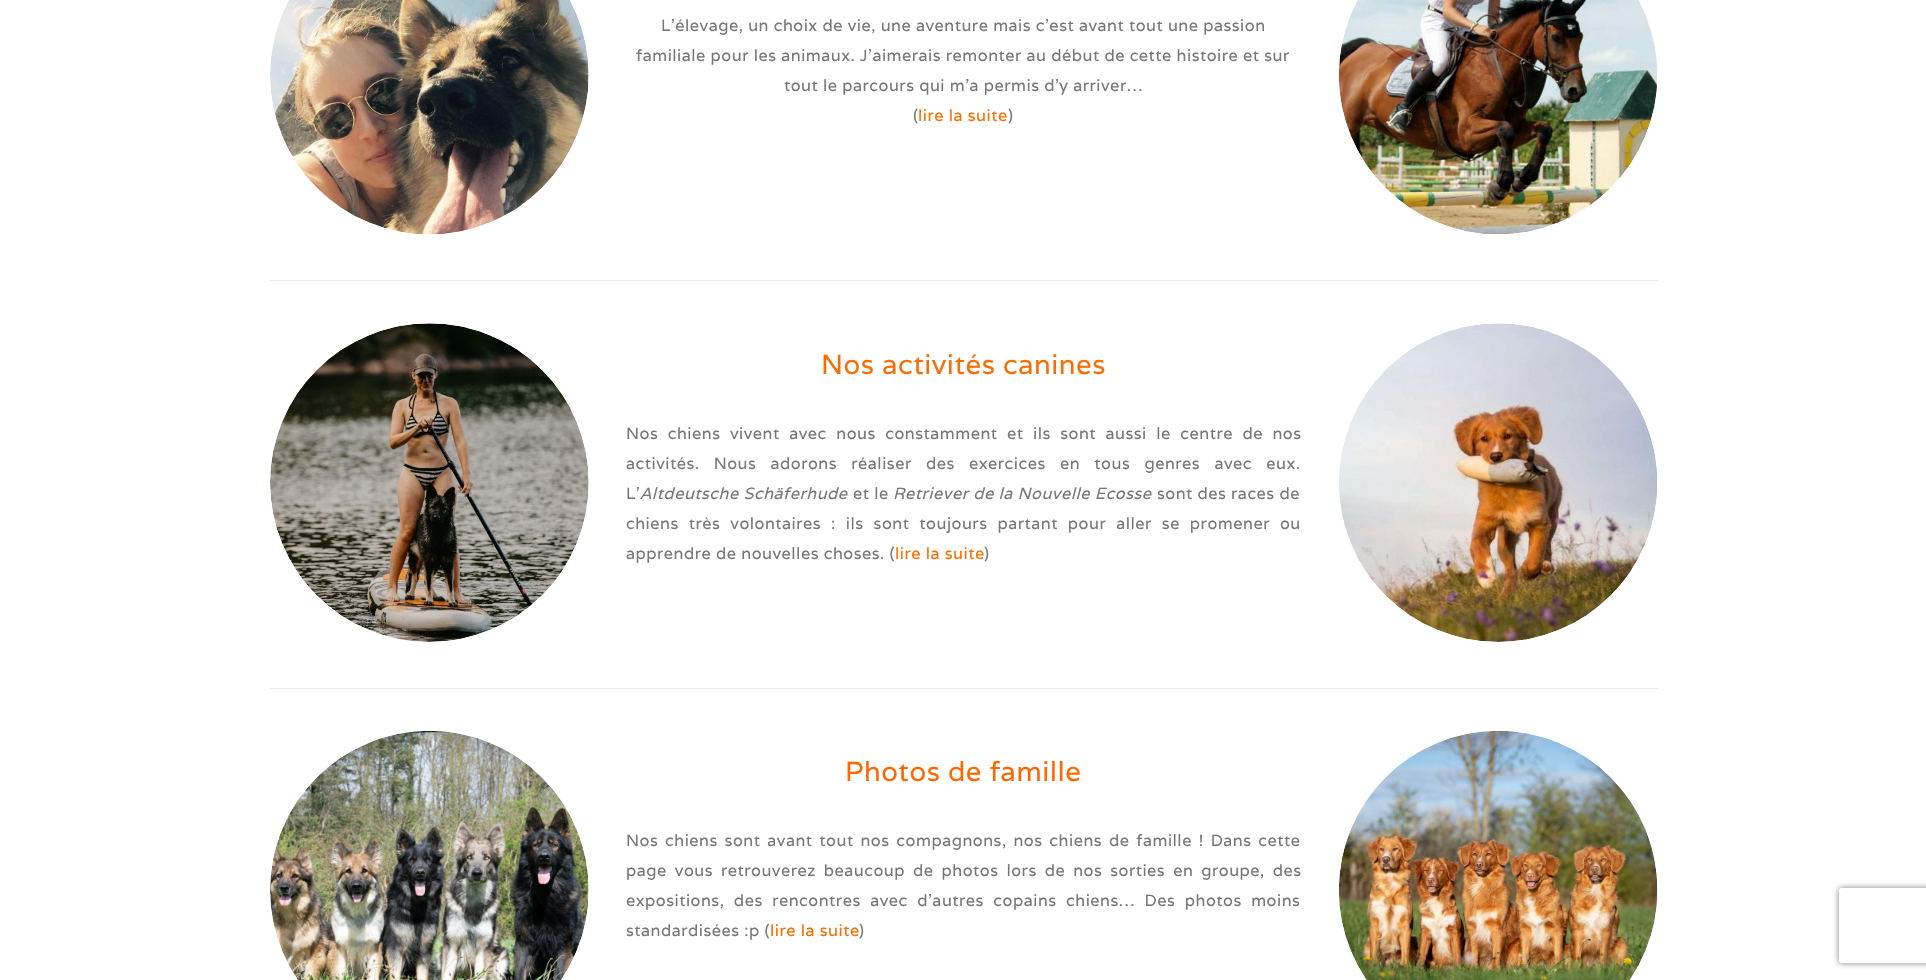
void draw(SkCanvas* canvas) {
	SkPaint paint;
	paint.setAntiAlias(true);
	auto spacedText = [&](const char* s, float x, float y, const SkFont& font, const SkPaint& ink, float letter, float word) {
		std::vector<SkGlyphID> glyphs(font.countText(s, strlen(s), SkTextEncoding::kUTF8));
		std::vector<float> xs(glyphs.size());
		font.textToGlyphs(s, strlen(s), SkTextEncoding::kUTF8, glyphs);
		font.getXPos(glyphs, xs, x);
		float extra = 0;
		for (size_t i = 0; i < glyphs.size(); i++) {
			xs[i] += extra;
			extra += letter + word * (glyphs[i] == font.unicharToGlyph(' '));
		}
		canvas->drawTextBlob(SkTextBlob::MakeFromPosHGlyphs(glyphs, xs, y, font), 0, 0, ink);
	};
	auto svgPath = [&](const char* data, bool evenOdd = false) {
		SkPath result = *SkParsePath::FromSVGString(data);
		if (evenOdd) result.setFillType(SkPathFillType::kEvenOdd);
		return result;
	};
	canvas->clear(0xffffffff);
	canvas->drawImageRect(SkImages::DeferredFromEncodedData(SkData::MakeFromFileName("img1.png")), SkRect::MakeXYWH(270, 0, 319, 235), SkSamplingOptions());
	SkFont f1(fontMgr->matchFamilyStyle("Varela", SkFontStyle::Normal()), 16.25);
	f1.setSubpixel(true);
	paint.setColor(0xff777777);
	spacedText("L’élevage, un choix de vie, une aventure mais c’est avant tout une passion", 661, 31, f1, paint, 0.5, 0);
	spacedText("familiale pour les animaux. J’aimerais remonter au début de cette histoire et sur", 636, 61, f1, paint, 0.5, 0);
	spacedText("tout le parcours qui m’a permis d’y arriver…", 784, 91, f1, paint, 0.5, 0);
	spacedText("(", 913, 121, f1, paint, 0.5, 0);
	paint.setColor(0xfffb6d01);
	spacedText("lire la suite", 918, 121, f1, paint, 0.5, 0);
	paint.setColor(0xff777777);
	spacedText(")", 1008, 121, f1, paint, 0.5, 0);
	canvas->drawImageRect(SkImages::DeferredFromEncodedData(SkData::MakeFromFileName("img2.png")), SkRect::MakeXYWH(1339, 0, 319, 235), SkSamplingOptions());
	paint.setColor(0xffebebeb);
	canvas->drawRect(SkRect::MakeXYWH(270, 280, 1388, 1), paint);
	canvas->drawImageRect(SkImages::DeferredFromEncodedData(SkData::MakeFromFileName("img3.png")), SkRect::MakeXYWH(270, 323, 319, 319), SkSamplingOptions());
	SkFont f2(fontMgr->matchFamilyStyle("Varela", SkFontStyle::Normal()), 27.5);
	f2.setSubpixel(true);
	paint.setColor(0xfffb6d01);
	spacedText("Nos activités canines", 821, 374, f2, paint, 0.5, 0);
	paint.setColor(0xff777777);
	spacedText("Nos chiens vivent avec nous constamment et ils sont aussi le centre de nos", 626, 439, f1, paint, 0.5, 4.75);
	spacedText("activités. Nous adorons réaliser des exercices en tous genres avec eux.", 626, 469, f1, paint, 0.5, 9.5);
	spacedText("L’", 626, 499, f1, paint, 0.5, 0);
	SkFont f3(fontMgr->matchFamilyStyle("Varela", SkFontStyle::Italic()), 16.25);
	f3.setSubpixel(true);
	spacedText("Altdeutsche Schäferhude", 640, 499, f3, paint, 0.5, 0);
	spacedText("et le", 853, 499, f1, paint, 0.5, 0);
	spacedText("Retriever de la Nouvelle Ecosse", 893, 499, f3, paint, 0.5, 0);
	spacedText("sont des races de", 1157, 499, f1, paint, 0.5, 0);
	spacedText("chiens très volontaires : ils sont toujours partant pour aller se promener ou", 626, 529, f1, paint, 0.5, 5.25);
	spacedText("apprendre de nouvelles choses. (", 626, 559, f1, paint, 0.5, 0);
	paint.setColor(0xfffb6d01);
	spacedText("lire la suite", 895, 559, f1, paint, 0.5, 0);
	paint.setColor(0xff777777);
	spacedText(")", 984, 559, f1, paint, 0.5, 0);
	canvas->drawImageRect(SkImages::DeferredFromEncodedData(SkData::MakeFromFileName("img4.png")), SkRect::MakeXYWH(1339, 323, 319, 319), SkSamplingOptions());
	paint.setColor(0xffebebeb);
	canvas->drawRect(SkRect::MakeXYWH(270, 688, 1388, 1), paint);
	canvas->drawImageRect(SkImages::DeferredFromEncodedData(SkData::MakeFromFileName("img5.png")), SkRect::MakeXYWH(270, 731, 319, 249), SkSamplingOptions());
	paint.setColor(0xffff6600);
	spacedText("Photos de famille", 845, 781, f2, paint, 0.5, 0);
	paint.setColor(0xff777777);
	spacedText("Nos chiens sont avant tout nos compagnons, nos chiens de famille ! Dans cette", 626, 846, f1, paint, 0.5, 2.1);
	spacedText("page vous retrouverez beaucoup de photos lors de nos sorties en groupe, des", 626, 876, f1, paint, 0.5, 3.25);
	spacedText("expositions, des rencontres avec d’autres copains chiens… Des photos moins", 626, 906, f1, paint, 0.5, 4.75);
	spacedText("standardisées :p (", 626, 936, f1, paint, 0.5, 0);
	paint.setColor(0xfffb6d01);
	spacedText("lire la suite", 770, 936, f1, paint, 0.5, 0);
	paint.setColor(0xff777777);
	spacedText(")", 859, 936, f1, paint, 0.5, 0);
	canvas->drawImageRect(SkImages::DeferredFromEncodedData(SkData::MakeFromFileName("img6.png")), SkRect::MakeXYWH(1339, 731, 319, 249), SkSamplingOptions());
	canvas->save();
	canvas->clipPath(svgPath("M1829 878H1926V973H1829ZM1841.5 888H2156.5C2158 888 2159 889 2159 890.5V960.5C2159 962 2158 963 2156.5 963H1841.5C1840 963 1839 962 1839 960.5V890.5C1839 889 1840 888 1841.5 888Z", true), true);
	paint.setColor(0xff808080);
	paint.setMaskFilter(SkMaskFilter::MakeBlur(kNormal_SkBlurStyle, 3));
	canvas->drawRoundRect(SkRect::MakeXYWH(1839, 888, 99, 75), 2.5, 2.5, paint);
	paint.setMaskFilter(nullptr);
	canvas->restore();
}
